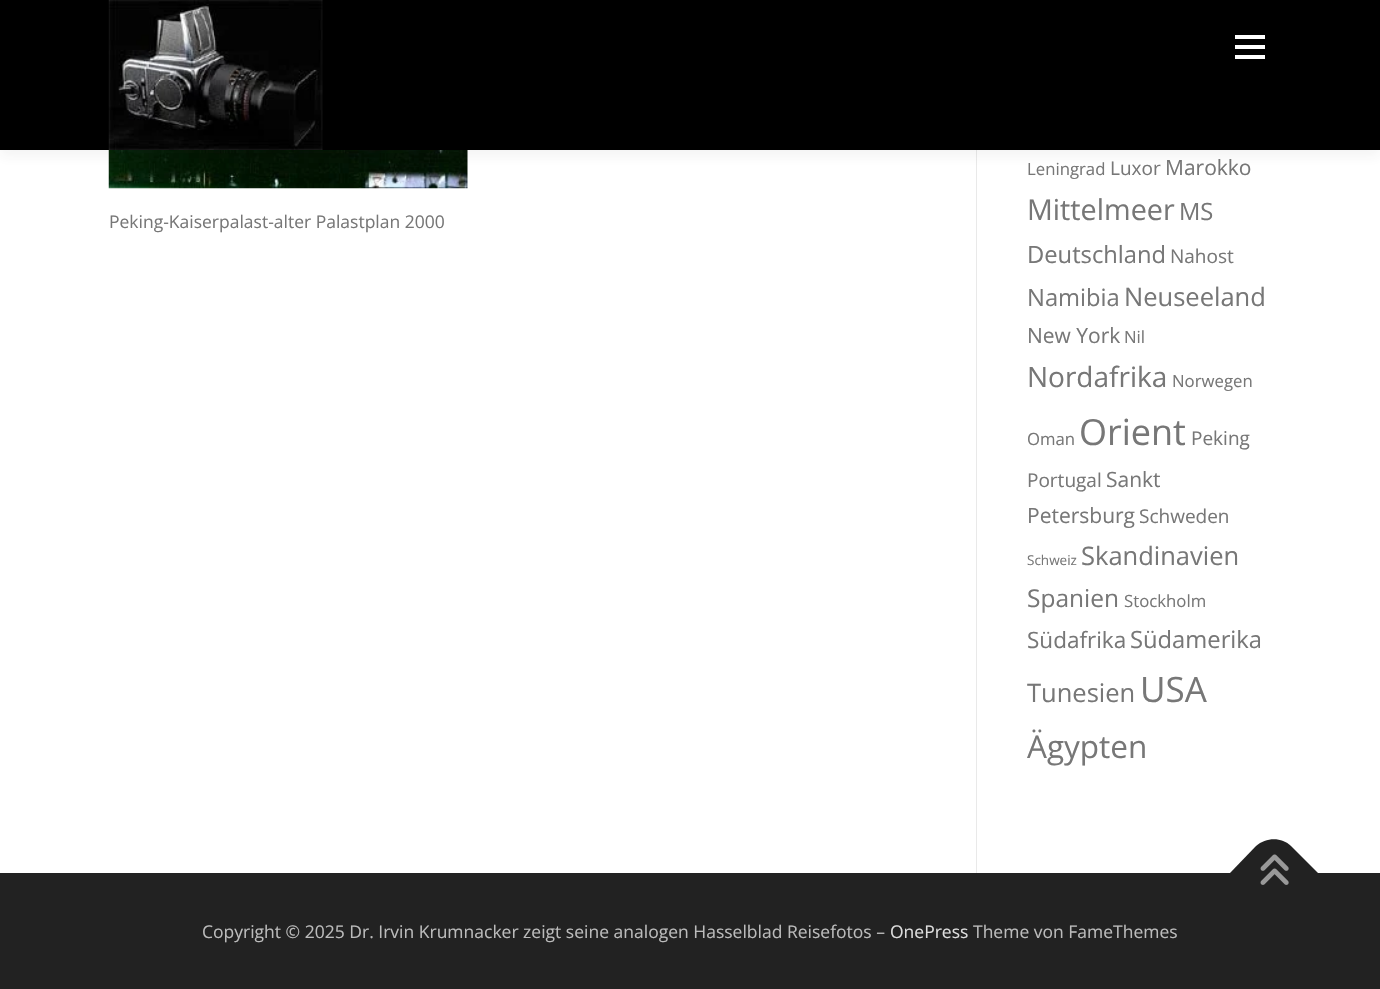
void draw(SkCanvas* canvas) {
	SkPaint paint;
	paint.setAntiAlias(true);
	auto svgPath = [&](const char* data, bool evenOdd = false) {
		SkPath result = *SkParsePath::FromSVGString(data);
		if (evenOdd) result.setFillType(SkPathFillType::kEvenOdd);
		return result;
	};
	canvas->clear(0xffffffff);
	canvas->drawImageRect(SkImages::DeferredFromEncodedData(SkData::MakeFromFileName("img2.png")), SkRect::MakeXYWH(108, 150, 360, 39), SkSamplingOptions());
	paint.setColor(0xffe9e9e9);
	canvas->drawRect(SkRect::MakeXYWH(976, 150, 1, 723), paint);
	paint.setColor(0x0f323232);
	paint.setMaskFilter(SkMaskFilter::MakeBlur(kNormal_SkBlurStyle, 6));
	canvas->drawRect(SkRect::MakeXYWH(0, 6, 1380, 150), paint);
	paint.setMaskFilter(nullptr);
	paint.setColor(0xff000000);
	canvas->drawRect(SkRect::MakeXYWH(0, 0, 1380, 150), paint);
	canvas->drawImageRect(SkImages::DeferredFromEncodedData(SkData::MakeFromFileName("img1.png")), SkRect::MakeXYWH(108, 0, 215, 150), SkSamplingOptions());
	paint.setColor(0xffffffff);
	canvas->drawRect(SkRect::MakeXYWH(1235, 45, 30, 4), paint);
	canvas->drawRect(SkRect::MakeXYWH(1235, 35, 30, 4), paint);
	canvas->drawRect(SkRect::MakeXYWH(1235, 55, 30, 4), paint);
	SkFont f1(fontMgr->matchFamilyStyle("Open Sans", SkFontStyle::Normal()), 17.5);
	f1.setSubpixel(true);
	paint.setColor(0xff777777);
	canvas->drawString("Peking-Kaiserpalast-alter Palastplan 2000", 109, 228, f1, paint);
	SkFont f2(fontMgr->matchFamilyStyle("Open Sans", SkFontStyle::Normal()), 16.75);
	f2.setSubpixel(true);
	canvas->drawString("Leningrad", 1027, 175, f2, paint);
	SkFont f3(fontMgr->matchFamilyStyle("Open Sans", SkFontStyle::Normal()), 19);
	f3.setSubpixel(true);
	canvas->drawString("Luxor", 1110, 175, f3, paint);
	SkFont f4(fontMgr->matchFamilyStyle("Open Sans", SkFontStyle::Normal()), 21);
	f4.setSubpixel(true);
	canvas->drawString("Marokko", 1165, 175, f4, paint);
	SkFont f5(fontMgr->matchFamilyStyle("Open Sans", SkFontStyle::Normal()), 28.75);
	f5.setSubpixel(true);
	canvas->drawString("Mittelmeer", 1027, 220, f5, paint);
	SkFont f6(fontMgr->matchFamilyStyle("Open Sans", SkFontStyle::Normal()), 23.75);
	f6.setSubpixel(true);
	canvas->drawString("MS", 1179, 220, f6, paint);
	canvas->drawString("Deutschland", 1027, 263, f6, paint);
	canvas->drawString("Nahost", 1170, 263, f3, paint);
	canvas->drawString("Namibia", 1027, 306, f6, paint);
	SkFont f7(fontMgr->matchFamilyStyle("Open Sans", SkFontStyle::Normal()), 25.5);
	f7.setSubpixel(true);
	canvas->drawString("Neuseeland", 1124, 306, f7, paint);
	canvas->drawString("New York", 1027, 343, f4, paint);
	canvas->drawString("Nil", 1124, 343, f2, paint);
	SkFont f8(fontMgr->matchFamilyStyle("Open Sans", SkFontStyle::Normal()), 28);
	f8.setSubpixel(true);
	canvas->drawString("Nordafrika", 1027, 387, f8, paint);
	canvas->drawString("Norwegen", 1172, 387, f2, paint);
	canvas->drawString("Oman", 1027, 445, f2, paint);
	SkFont f9(fontMgr->matchFamilyStyle("Open Sans", SkFontStyle::Normal()), 36);
	f9.setSubpixel(true);
	canvas->drawString("Orient", 1079, 445, f9, paint);
	canvas->drawString("Peking", 1191, 445, f3, paint);
	canvas->drawString("Portugal", 1027, 487, f3, paint);
	canvas->drawString("Sankt", 1106, 487, f4, paint);
	canvas->drawString("Petersburg", 1027, 523, f4, paint);
	canvas->drawString("Schweden", 1139, 523, f3, paint);
	SkFont f10(fontMgr->matchFamilyStyle("Open Sans", SkFontStyle::Normal()), 13.5);
	f10.setSubpixel(true);
	canvas->drawString("Schweiz", 1027, 565, f10, paint);
	canvas->drawString("Skandinavien", 1081, 565, f7, paint);
	SkFont f11(fontMgr->matchFamilyStyle("Open Sans", SkFontStyle::Normal()), 24.5);
	f11.setSubpixel(true);
	canvas->drawString("Spanien", 1027, 607, f11, paint);
	canvas->drawString("Stockholm", 1124, 607, f2, paint);
	SkFont f12(fontMgr->matchFamilyStyle("Open Sans", SkFontStyle::Normal()), 22.5);
	f12.setSubpixel(true);
	canvas->drawString("Südafrika", 1027, 648, f12, paint);
	canvas->drawString("Südamerika", 1130, 648, f6, paint);
	canvas->drawString("Tunesien", 1027, 702, f7, paint);
	SkFont f13(fontMgr->matchFamilyStyle("Open Sans", SkFontStyle::Normal()), 35);
	f13.setSubpixel(true);
	canvas->drawString("USA", 1140, 702, f13, paint);
	SkFont f14(fontMgr->matchFamilyStyle("Open Sans", SkFontStyle::Normal()), 31.5);
	f14.setSubpixel(true);
	canvas->drawString("Ägypten", 1027, 758, f14, paint);
	paint.setColor(0xff222222);
	canvas->drawRect(SkRect::MakeXYWH(0, 873, 1380, 116), paint);
	canvas->drawPath(svgPath("M1230 873L1256 846C1266 837 1282 837 1291 846L1318 873L1274 917Z"), paint);
	canvas->drawImageRect(SkImages::DeferredFromEncodedData(SkData::MakeFromFileName("img3.png")), SkRect::MakeXYWH(1260, 854, 29, 31), SkSamplingOptions());
	paint.setColor(0xffbbbbbb);
	canvas->drawString("Copyright © 2025 Dr. Irvin Krumnacker zeigt seine analogen Hasselblad Reisefotos –", 202, 938, f1, paint);
	paint.setColor(0xffdddddd);
	canvas->drawString("OnePress", 890, 938, f1, paint);
	paint.setColor(0xffbbbbbb);
	canvas->drawString("Theme von FameThemes", 973, 938, f1, paint);
}
